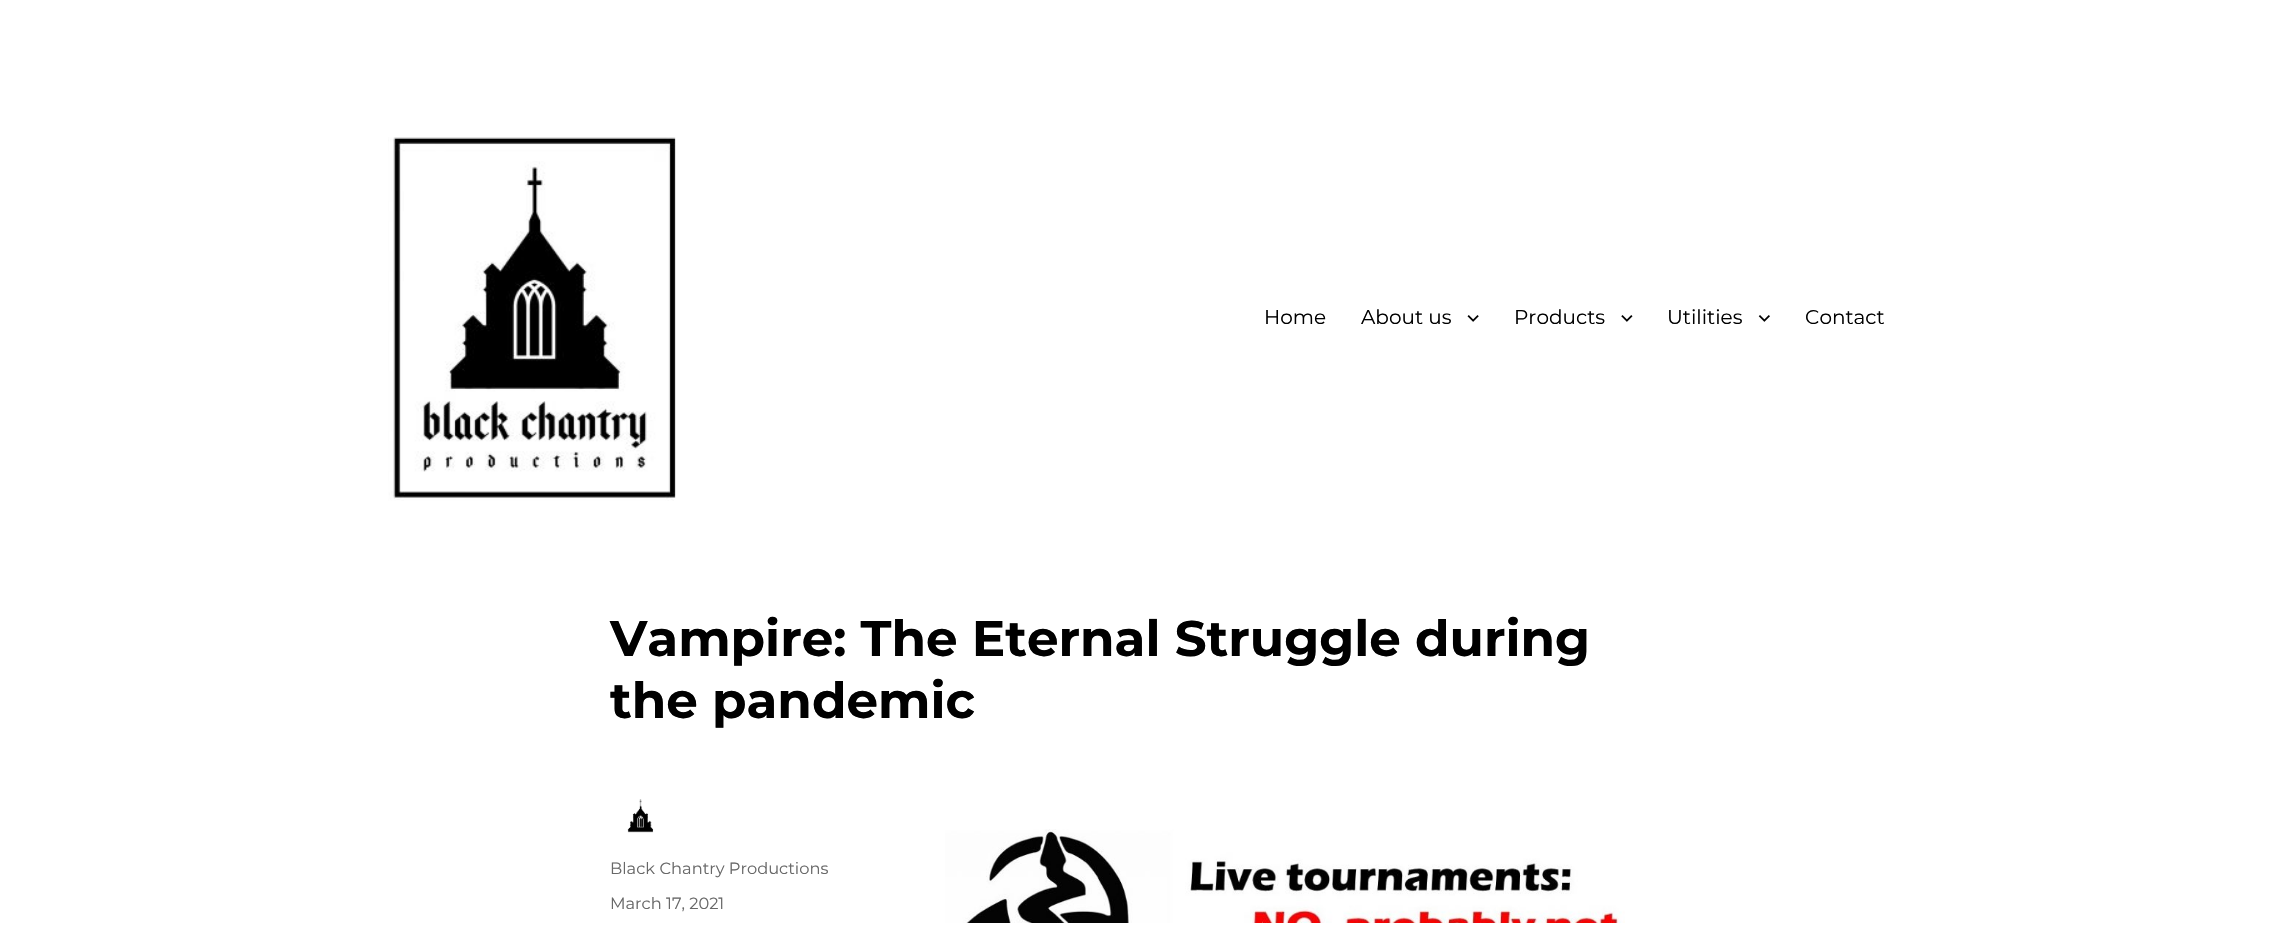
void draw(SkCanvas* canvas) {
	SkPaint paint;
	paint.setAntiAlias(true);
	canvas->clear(0xffffffff);
	canvas->drawImageRect(SkImages::DeferredFromEncodedData(SkData::MakeFromFileName("img1.png")), SkRect::MakeXYWH(388, 137, 288, 364), SkSamplingOptions());
	SkFont f1(fontMgr->matchFamilyStyle("Montserrat", SkFontStyle(100, SkFontStyle::kNormal_Width, SkFontStyle::kUpright_Slant)), 20);
	f1.setSubpixel(true);
	paint.setColor(0xff000000);
	canvas->drawString("Home", 1264, 324, f1, paint);
	canvas->drawString("About us", 1361, 324, f1, paint);
	canvas->drawImageRect(SkImages::DeferredFromEncodedData(SkData::MakeFromFileName("img2.png")), SkRect::MakeXYWH(1467, 315, 12, 7), SkSamplingOptions());
	canvas->drawString("Products", 1514, 324, f1, paint);
	canvas->drawImageRect(SkImages::DeferredFromEncodedData(SkData::MakeFromFileName("img3.png")), SkRect::MakeXYWH(1621, 315, 12, 7), SkSamplingOptions());
	canvas->drawString("Utilities", 1667, 324, f1, paint);
	canvas->drawImageRect(SkImages::DeferredFromEncodedData(SkData::MakeFromFileName("img4.png")), SkRect::MakeXYWH(1758, 315, 12, 7), SkSamplingOptions());
	canvas->drawString("Contact", 1805, 324, f1, paint);
	SkFont f2(fontMgr->matchFamilyStyle("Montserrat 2", SkFontStyle(100, SkFontStyle::kNormal_Width, SkFontStyle::kUpright_Slant)), 50);
	f2.setSubpixel(true);
	canvas->drawString("Vampire: The Eternal Struggle during", 610, 656, f2, paint);
	canvas->drawString("the pandemic", 610, 718, f2, paint);
	canvas->drawImageRect(SkImages::DeferredFromEncodedData(SkData::MakeFromFileName("img5.png")), SkRect::MakeXYWH(627, 799, 27, 34), SkSamplingOptions());
	SkFont f3(fontMgr->matchFamilyStyle("Montserrat", SkFontStyle(100, SkFontStyle::kNormal_Width, SkFontStyle::kUpright_Slant)), 16.25);
	f3.setSubpixel(true);
	paint.setColor(0xff686868);
	canvas->drawString("Black Chantry Productions", 610, 874, f3, paint);
	canvas->drawString("March 17, 2021", 610, 909, f3, paint);
	canvas->drawImageRect(SkImages::DeferredFromEncodedData(SkData::MakeFromFileName("img6.png")), SkRect::MakeXYWH(945, 829, 680, 94), SkSamplingOptions());
}
